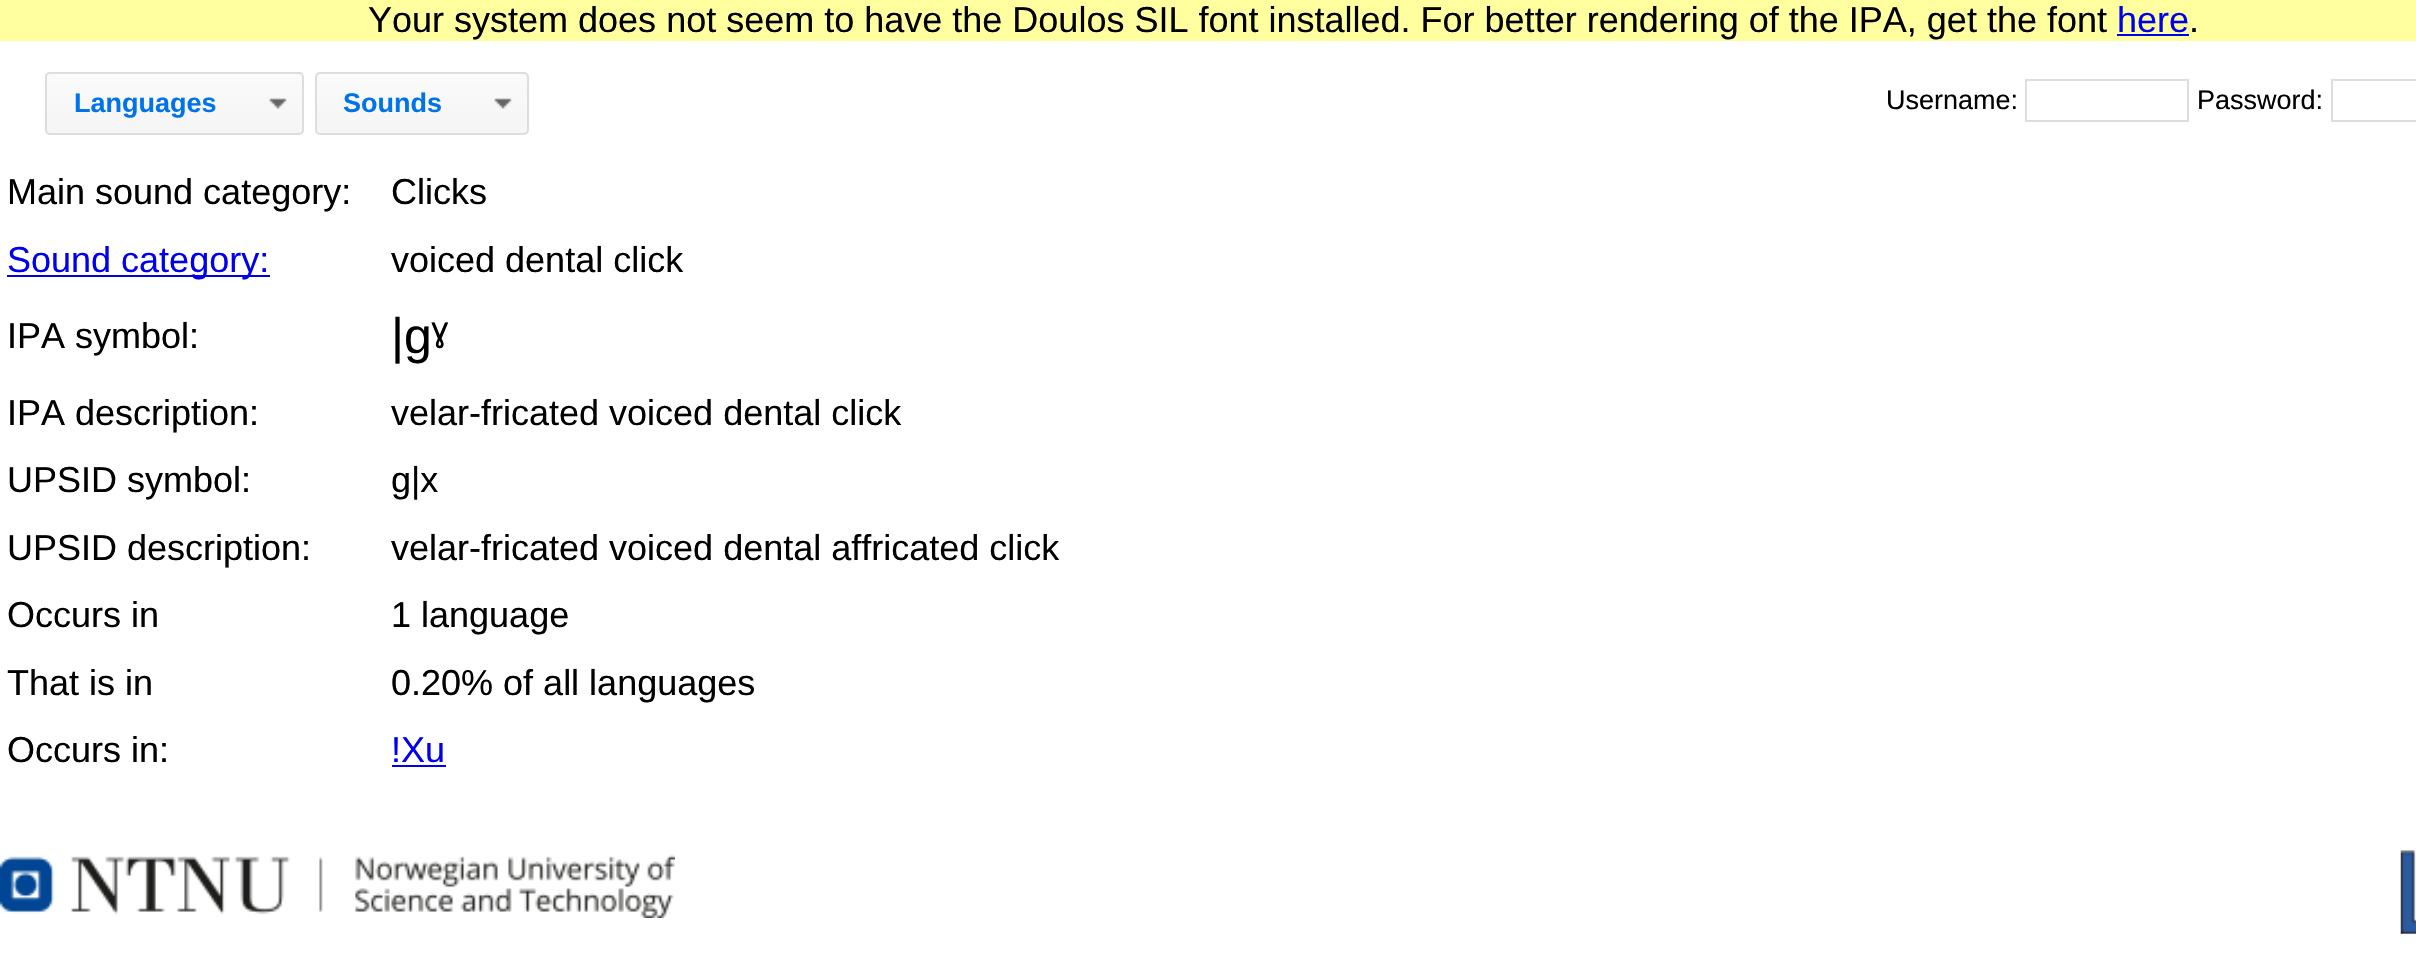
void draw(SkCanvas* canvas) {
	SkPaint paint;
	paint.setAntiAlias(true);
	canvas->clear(0xffffffff);
	paint.setColor(0xffffffa0);
	canvas->drawRect(SkRect::MakeXYWH(0, 0, 2416, 41), paint);
	SkFont f1(fontMgr->matchFamilyStyle("Liberation Sans", SkFontStyle::Normal()), 36);
	f1.setSubpixel(true);
	paint.setColor(0xff000000);
	canvas->drawString("Your system does not seem to have the Doulos SIL font installed. For better rendering of the IPA, get the font", 368, 32, f1, paint);
	paint.setColor(0xff0000ee);
	canvas->drawString("here", 2117, 32, f1, paint);
	canvas->drawRect(SkRect::MakeXYWH(2117, 34, 72, 2), paint);
	paint.setColor(0xff000000);
	canvas->drawString(".", 2189, 32, f1, paint);
	canvas->drawImageRect(SkImages::DeferredFromEncodedData(SkData::MakeFromFileName("img1.png")), SkRect::MakeXYWH(46, 72, 256, 62), SkSamplingOptions());
	paint.setStroke(true);
	paint.setStrokeWidth(2);
	paint.setColor(0xffdddddd);
	canvas->drawRoundRect(SkRect::MakeXYWH(46, 73, 257, 61), 4, 4, paint);
	SkFont f2(fontMgr->matchFamilyStyle("Liberation Sans", SkFontStyle::Bold()), 27);
	f2.setSubpixel(true);
	paint.setStroke(false);
	paint.setColor(0xff0073ea);
	canvas->drawString("Languages", 74, 112, f2, paint);
	canvas->drawImageRect(SkImages::DeferredFromEncodedData(SkData::MakeFromFileName("img2.png")), SkRect::MakeXYWH(269, 98, 18, 11), SkSamplingOptions());
	canvas->drawImageRect(SkImages::DeferredFromEncodedData(SkData::MakeFromFileName("img3.png")), SkRect::MakeXYWH(316, 72, 211, 62), SkSamplingOptions());
	paint.setStroke(true);
	paint.setColor(0xffdddddd);
	canvas->drawRoundRect(SkRect::MakeXYWH(316, 73, 212, 61), 4, 4, paint);
	paint.setStroke(false);
	paint.setColor(0xff0073ea);
	canvas->drawString("Sounds", 343, 112, f2, paint);
	canvas->drawImageRect(SkImages::DeferredFromEncodedData(SkData::MakeFromFileName("img4.png")), SkRect::MakeXYWH(494, 98, 18, 11), SkSamplingOptions());
	SkFont f3(fontMgr->matchFamilyStyle("Liberation Sans", SkFontStyle::Normal()), 27);
	f3.setSubpixel(true);
	paint.setColor(0xff000000);
	canvas->drawString("Username:", 1886, 109, f3, paint);
	paint.setStroke(true);
	paint.setColor(0xffdddddd);
	canvas->drawRect(SkRect::MakeXYWH(2026, 80, 162, 41), paint);
	paint.setStroke(false);
	paint.setColor(0xff000000);
	canvas->drawString("Password:", 2197, 109, f3, paint);
	paint.setStroke(true);
	paint.setColor(0xffdddddd);
	canvas->drawRect(SkRect::MakeXYWH(2332, 80, 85, 41), paint);
	paint.setStroke(false);
	paint.setColor(0xff000000);
	canvas->drawString("Main sound category:", 7, 204, f1, paint);
	canvas->drawString("Clicks", 391, 204, f1, paint);
	paint.setColor(0xff0000ee);
	canvas->drawRect(SkRect::MakeXYWH(7, 275, 263, 2), paint);
	canvas->drawString("Sound category:", 7, 272, f1, paint);
	paint.setColor(0xff000000);
	canvas->drawString("voiced dental click", 391, 272, f1, paint);
	canvas->drawString("IPA symbol:", 7, 348, f1, paint);
	SkFont f4(fontMgr->matchFamilyStyle("Liberation Sans", SkFontStyle::Normal()), 50);
	f4.setSubpixel(true);
	canvas->drawString("|gˠ", 391, 353, f4, paint);
	canvas->drawString("IPA description:", 7, 425, f1, paint);
	canvas->drawString("velar-fricated voiced dental click", 391, 425, f1, paint);
	canvas->drawString("UPSID symbol:", 7, 492, f1, paint);
	canvas->drawString("g|x", 391, 492, f1, paint);
	canvas->drawString("UPSID description:", 7, 560, f1, paint);
	canvas->drawString("velar-fricated voiced dental affricated click", 391, 560, f1, paint);
	canvas->drawString("Occurs in", 7, 627, f1, paint);
	canvas->drawString("1 language", 391, 627, f1, paint);
	canvas->drawString("That is in", 7, 695, f1, paint);
	canvas->drawString("0.20% of all languages", 391, 695, f1, paint);
	canvas->drawString("Occurs in:", 7, 762, f1, paint);
	paint.setColor(0xff0000ee);
	canvas->drawString("!Xu", 391, 762, f1, paint);
	canvas->drawRect(SkRect::MakeXYWH(392, 765, 54, 2), paint);
	canvas->drawImageRect(SkImages::DeferredFromEncodedData(SkData::MakeFromFileName("img5.png")), SkRect::MakeXYWH(0, 854, 675, 64), SkSamplingOptions());
	canvas->drawImageRect(SkImages::DeferredFromEncodedData(SkData::MakeFromFileName("img6.png")), SkRect::MakeXYWH(2400, 850, 16, 84), SkSamplingOptions());
}
